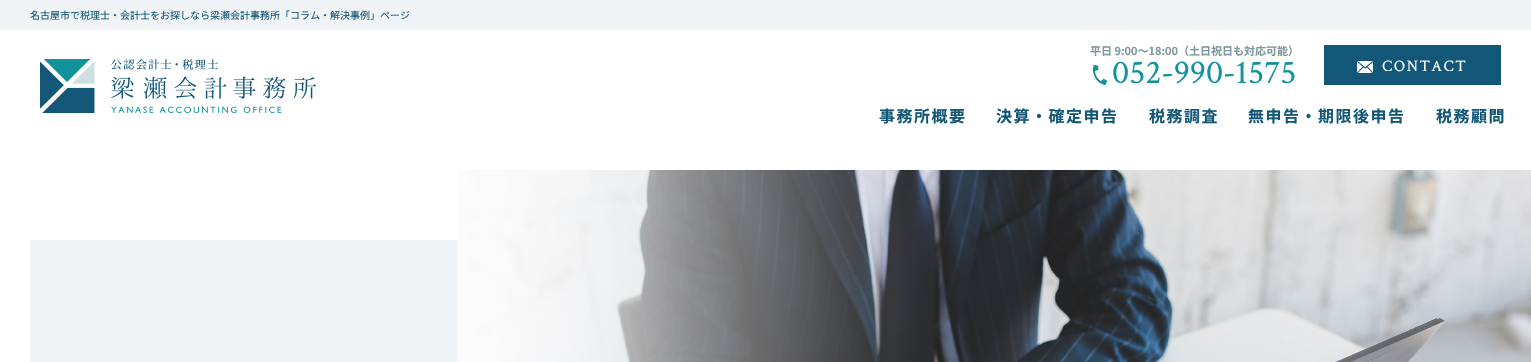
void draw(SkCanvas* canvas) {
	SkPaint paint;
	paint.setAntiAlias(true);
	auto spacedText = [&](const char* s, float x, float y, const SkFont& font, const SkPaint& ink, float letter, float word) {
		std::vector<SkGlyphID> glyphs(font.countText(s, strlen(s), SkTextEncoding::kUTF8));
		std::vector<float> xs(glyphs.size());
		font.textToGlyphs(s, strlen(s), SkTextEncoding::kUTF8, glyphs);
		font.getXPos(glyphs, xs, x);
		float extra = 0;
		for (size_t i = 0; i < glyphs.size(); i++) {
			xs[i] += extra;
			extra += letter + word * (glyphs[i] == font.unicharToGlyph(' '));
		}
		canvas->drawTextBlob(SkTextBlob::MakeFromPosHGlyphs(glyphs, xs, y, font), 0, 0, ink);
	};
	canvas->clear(0xffffffff);
	paint.setColor(0xfff1f4f6);
	canvas->drawRect(SkRect::MakeXYWH(0, 0, 1531, 30), paint);
	SkFont f1(fontMgr->matchFamilyStyle("Noto Sans JP", SkFontStyle::Normal()), 10);
	f1.setSubpixel(true);
	paint.setColor(0xff125777);
	canvas->drawString("名古屋市で税理士・会計士をお探しなら梁瀬会計事務所「コラム・解決事例」ページ", 30, 19, f1, paint);
	canvas->drawImageRect(SkImages::DeferredFromEncodedData(SkData::MakeFromFileName("img1.png")), SkRect::MakeXYWH(40, 59, 276, 54), SkSamplingOptions());
	SkFont f2(fontMgr->matchFamilyStyle("Noto Sans JP", SkFontStyle::Bold()), 11);
	f2.setSubpixel(true);
	paint.setColor(0xff7f989d);
	canvas->drawString("平日 9:00〜18:00（土日祝日も対応可能）", 1090, 55, f2, paint);
	canvas->drawImageRect(SkImages::DeferredFromEncodedData(SkData::MakeFromFileName("img2.png")), SkRect::MakeXYWH(1093, 65, 14, 20), SkSamplingOptions());
	SkFont f3(fontMgr->matchFamilyStyle("Crimson Text", SkFontStyle::Normal()), 34);
	f3.setSubpixel(true);
	paint.setColor(0xff11939b);
	canvas->drawString("052-990-1575", 1112, 83, f3, paint);
	paint.setColor(0xff125777);
	canvas->drawRect(SkRect::MakeXYWH(1324, 45, 177, 40), paint);
	canvas->drawImageRect(SkImages::DeferredFromEncodedData(SkData::MakeFromFileName("img3.png")), SkRect::MakeXYWH(1357, 61, 16, 12), SkSamplingOptions());
	SkFont f4(fontMgr->matchFamilyStyle("Crimson Text", SkFontStyle::Normal()), 16);
	f4.setSubpixel(true);
	paint.setColor(0xffffffff);
	spacedText("CONTACT", 1382, 71, f4, paint, 1.5, 0);
	SkFont f5(fontMgr->matchFamilyStyle("Noto Sans JP", SkFontStyle::Bold()), 16);
	f5.setSubpixel(true);
	paint.setColor(0xff125777);
	spacedText("事務所概要", 879, 122, f5, paint, 1.5, 0);
	spacedText("決算・確定申告", 996, 122, f5, paint, 1.5, 0);
	spacedText("税務調査", 1149, 122, f5, paint, 1.5, 0);
	spacedText("無申告・期限後申告", 1248, 122, f5, paint, 1.5, 0);
	spacedText("税務顧問", 1436, 122, f5, paint, 1.5, 0);
	paint.setColor(0xfff1f4f6);
	canvas->drawRect(SkRect::MakeXYWH(30, 240, 428, 122), paint);
	canvas->drawImageRect(SkImages::DeferredFromEncodedData(SkData::MakeFromFileName("img4.png")), SkRect::MakeXYWH(458, 170, 1073, 192), SkSamplingOptions());
}
